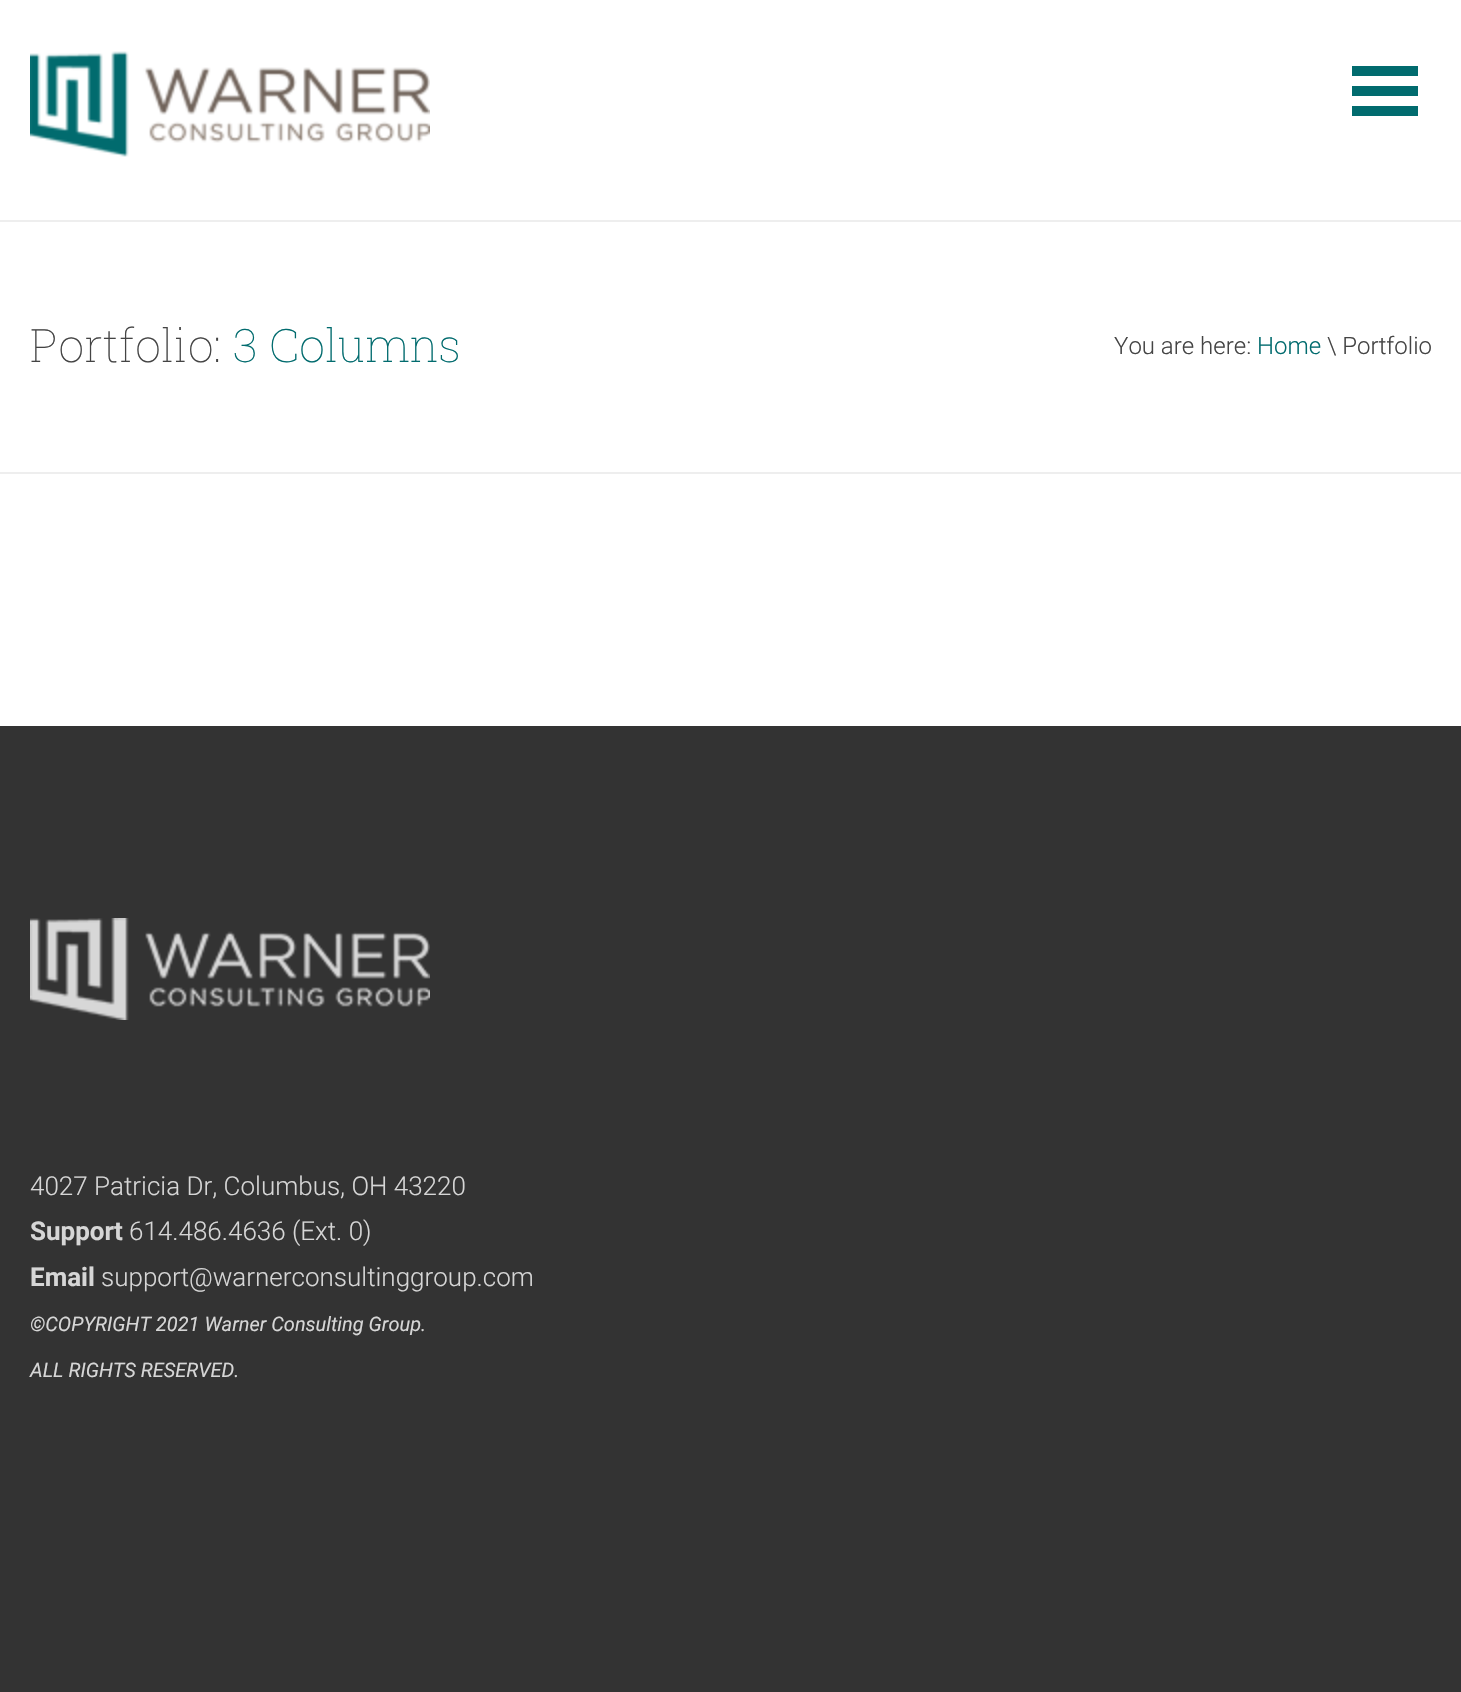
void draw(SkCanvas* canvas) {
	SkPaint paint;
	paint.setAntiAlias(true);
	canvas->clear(0xffffffff);
	canvas->drawImageRect(SkImages::DeferredFromEncodedData(SkData::MakeFromFileName("img1.png")), SkRect::MakeXYWH(30, 51, 400, 106), SkSamplingOptions());
	paint.setColor(0xff016b6e);
	canvas->drawRect(SkRect::MakeXYWH(1352, 106, 66, 10), paint);
	canvas->drawRect(SkRect::MakeXYWH(1352, 86, 66, 10), paint);
	canvas->drawRect(SkRect::MakeXYWH(1352, 66, 66, 10), paint);
	paint.setColor(0xffeeeeee);
	canvas->drawRect(SkRect::MakeXYWH(0, 220, 1461, 2), paint);
	canvas->drawRect(SkRect::MakeXYWH(0, 472, 1461, 2), paint);
	SkFont f1(fontMgr->matchFamilyStyle("Roboto Slab", SkFontStyle(100, SkFontStyle::kNormal_Width, SkFontStyle::kUpright_Slant)), 46);
	f1.setSubpixel(true);
	paint.setColor(0xff444444);
	canvas->drawString("Portfolio:", 30, 362, f1, paint);
	paint.setColor(0xff016b6e);
	canvas->drawString("3 Columns", 233, 362, f1, paint);
	SkFont f2(fontMgr->matchFamilyStyle("Roboto", SkFontStyle(300, SkFontStyle::kNormal_Width, SkFontStyle::kUpright_Slant)), 24);
	f2.setSubpixel(true);
	paint.setColor(0xff444444);
	canvas->drawString("You are here:", 1114, 354, f2, paint);
	paint.setColor(0xff016b6e);
	canvas->drawString("Home", 1257, 354, f2, paint);
	paint.setColor(0xff444444);
	canvas->drawString("\\ Portfolio", 1327, 354, f2, paint);
	paint.setColor(0xff333333);
	canvas->drawRect(SkRect::MakeXYWH(0, 726, 1461, 966), paint);
	canvas->drawImageRect(SkImages::DeferredFromEncodedData(SkData::MakeFromFileName("img2.png")), SkRect::MakeXYWH(30, 918, 400, 102), SkSamplingOptions());
	SkFont f3(fontMgr->matchFamilyStyle("Roboto", SkFontStyle(300, SkFontStyle::kNormal_Width, SkFontStyle::kUpright_Slant)), 26);
	f3.setSubpixel(true);
	paint.setColor(0xffd6d6d6);
	canvas->drawString("4027 Patricia Dr, Columbus, OH 43220", 30, 1195, f3, paint);
	SkFont f4(fontMgr->matchFamilyStyle("Roboto", SkFontStyle::Bold()), 26);
	f4.setSubpixel(true);
	canvas->drawString("Support", 30, 1240, f4, paint);
	canvas->drawString("614.486.4636 (Ext. 0)", 129, 1240, f3, paint);
	canvas->drawString("Email", 30, 1286, f4, paint);
	canvas->drawString("support@warnerconsultinggroup.com", 101, 1286, f3, paint);
	SkFont f5(fontMgr->matchFamilyStyle("Roboto", SkFontStyle::Italic()), 20);
	f5.setSubpixel(true);
	canvas->drawString("©COPYRIGHT 2021 Warner Consulting Group.", 30, 1331, f5, paint);
	canvas->drawString("ALL RIGHTS RESERVED.", 30, 1377, f5, paint);
}
